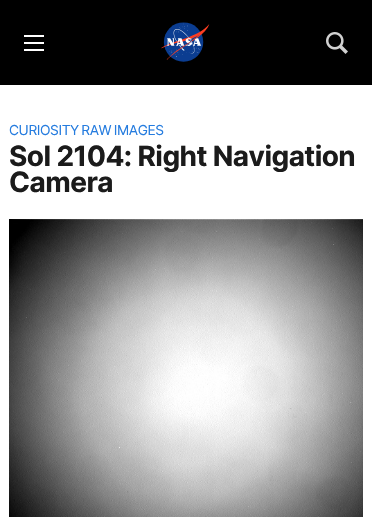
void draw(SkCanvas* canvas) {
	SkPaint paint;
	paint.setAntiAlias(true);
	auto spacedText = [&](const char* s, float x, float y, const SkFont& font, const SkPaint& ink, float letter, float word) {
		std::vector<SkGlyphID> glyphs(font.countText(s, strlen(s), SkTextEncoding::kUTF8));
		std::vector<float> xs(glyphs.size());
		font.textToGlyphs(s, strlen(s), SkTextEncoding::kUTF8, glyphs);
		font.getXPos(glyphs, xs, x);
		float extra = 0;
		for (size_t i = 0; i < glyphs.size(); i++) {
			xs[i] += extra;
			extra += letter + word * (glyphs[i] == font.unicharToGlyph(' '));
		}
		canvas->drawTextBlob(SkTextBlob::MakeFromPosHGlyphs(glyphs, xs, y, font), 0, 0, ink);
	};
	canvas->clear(0xffffffff);
	paint.setColor(0xff000000);
	canvas->drawRect(SkRect::MakeXYWH(0, 0, 372, 85), paint);
	paint.setColor(0xffffffff);
	canvas->drawRect(SkRect::MakeXYWH(24, 35, 20, 2), paint);
	canvas->drawRect(SkRect::MakeXYWH(24, 42, 20, 2), paint);
	canvas->drawRect(SkRect::MakeXYWH(24, 49, 20, 2), paint);
	canvas->drawImageRect(SkImages::DeferredFromEncodedData(SkData::MakeFromFileName("img1.png")), SkRect::MakeXYWH(161, 22, 49, 40), SkSamplingOptions());
	canvas->drawImageRect(SkImages::DeferredFromEncodedData(SkData::MakeFromFileName("img2.png")), SkRect::MakeXYWH(326, 32, 22, 22), SkSamplingOptions());
	SkFont f1(fontMgr->matchFamilyStyle("Inter", SkFontStyle::Normal()), 13.75);
	f1.setSubpixel(true);
	paint.setColor(0xff257cdf);
	spacedText("CURIOSITY RAW IMAGES", 9, 135, f1, paint, -0.4, -1);
	SkFont f2(fontMgr->matchFamilyStyle("Inter", SkFontStyle::Bold()), 28);
	f2.setSubpixel(true);
	paint.setColor(0xff1b1b1b);
	spacedText("Sol 2104: Right Navigation", 9, 166, f2, paint, -0.55, 0);
	spacedText("Camera", 9, 192, f2, paint, -0.55, 0);
	canvas->drawImageRect(SkImages::DeferredFromEncodedData(SkData::MakeFromFileName("img3.png")), SkRect::MakeXYWH(9, 219, 354, 298), SkSamplingOptions());
}
